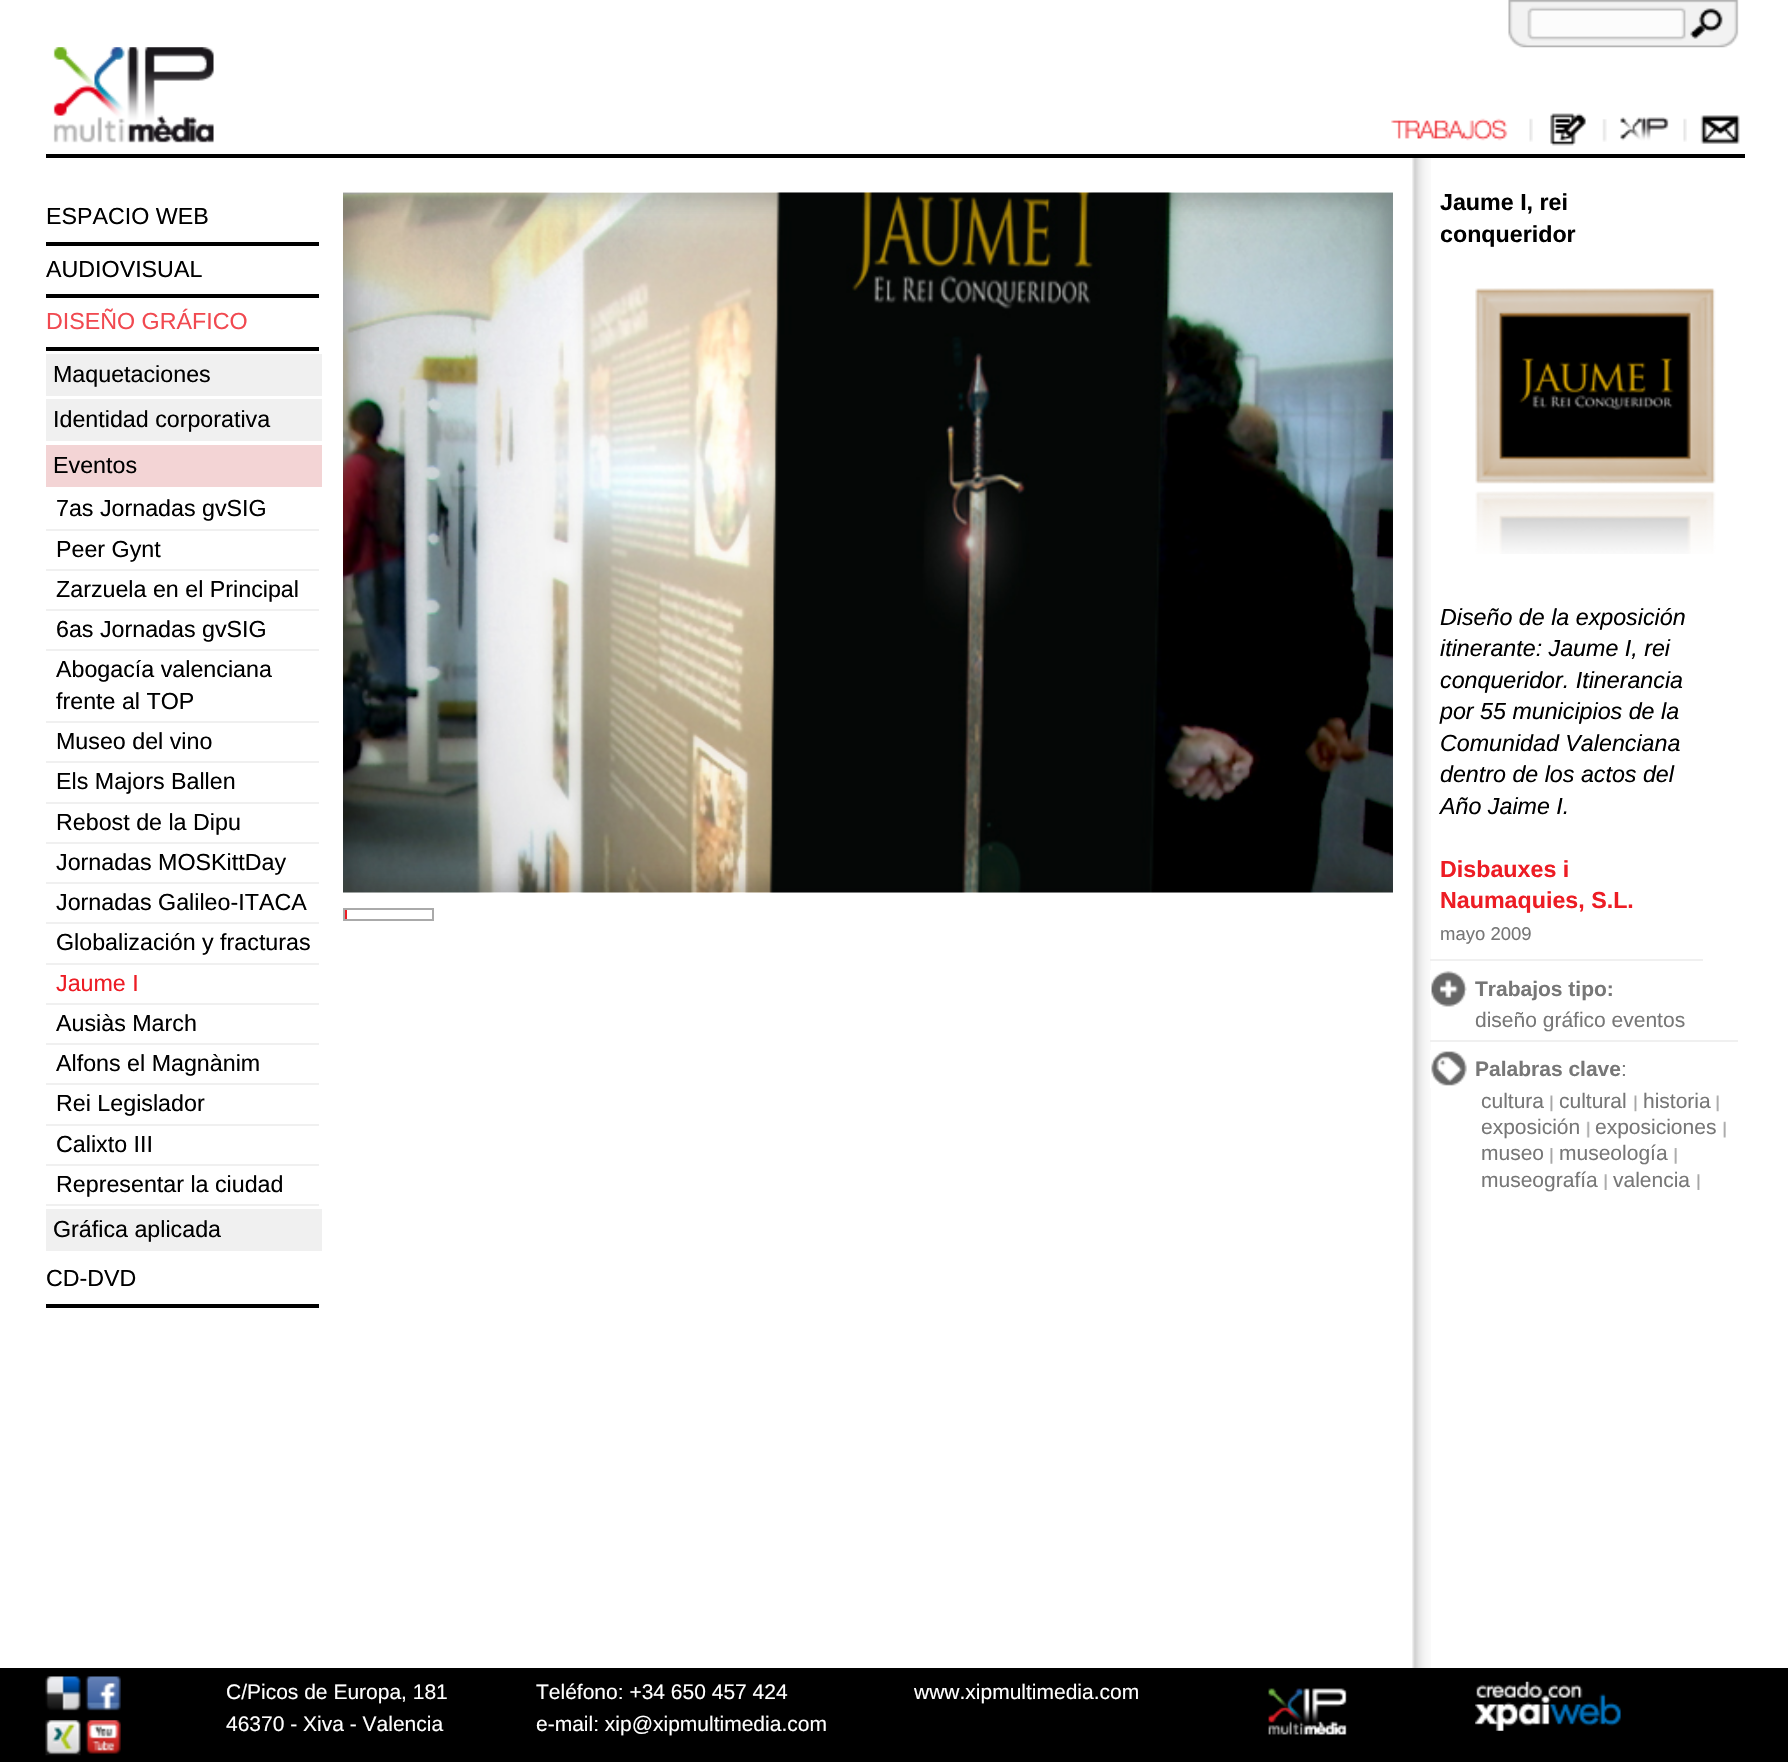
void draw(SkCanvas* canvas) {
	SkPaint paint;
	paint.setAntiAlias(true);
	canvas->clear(0xffffffff);
	canvas->drawImageRect(SkImages::DeferredFromEncodedData(SkData::MakeFromFileName("img1.png")), SkRect::MakeXYWH(1412, 158, 19, 1510), SkSamplingOptions());
	canvas->drawImageRect(SkImages::DeferredFromEncodedData(SkData::MakeFromFileName("img2.png")), SkRect::MakeXYWH(1508, 0, 231, 48), SkSamplingOptions());
	canvas->drawImageRect(SkImages::DeferredFromEncodedData(SkData::MakeFromFileName("img3.png")), SkRect::MakeXYWH(1690, 8, 33, 31), SkSamplingOptions());
	canvas->drawImageRect(SkImages::DeferredFromEncodedData(SkData::MakeFromFileName("img4.png")), SkRect::MakeXYWH(1391, 118, 117, 23), SkSamplingOptions());
	canvas->drawImageRect(SkImages::DeferredFromEncodedData(SkData::MakeFromFileName("img5.png")), SkRect::MakeXYWH(1529, 118, 4, 24), SkSamplingOptions());
	canvas->drawImageRect(SkImages::DeferredFromEncodedData(SkData::MakeFromFileName("img6.png")), SkRect::MakeXYWH(1550, 113, 36, 33), SkSamplingOptions());
	canvas->drawImageRect(SkImages::DeferredFromEncodedData(SkData::MakeFromFileName("img7.png")), SkRect::MakeXYWH(1602, 119, 5, 23), SkSamplingOptions());
	canvas->drawImageRect(SkImages::DeferredFromEncodedData(SkData::MakeFromFileName("img8.png")), SkRect::MakeXYWH(1620, 117, 49, 24), SkSamplingOptions());
	canvas->drawImageRect(SkImages::DeferredFromEncodedData(SkData::MakeFromFileName("img5.png")), SkRect::MakeXYWH(1683, 118, 4, 24), SkSamplingOptions());
	canvas->drawImageRect(SkImages::DeferredFromEncodedData(SkData::MakeFromFileName("img9.png")), SkRect::MakeXYWH(1700, 115, 40, 29), SkSamplingOptions());
	paint.setColor(0xff000000);
	canvas->drawRect(SkRect::MakeXYWH(46, 154, 1699, 4), paint);
	canvas->drawImageRect(SkImages::DeferredFromEncodedData(SkData::MakeFromFileName("img10.png")), SkRect::MakeXYWH(53, 47, 161, 96), SkSamplingOptions());
	canvas->drawRect(SkRect::MakeXYWH(46, 242, 273, 4), paint);
	SkFont f1(fontMgr->matchFamilyStyle("Liberation Sans", SkFontStyle::Normal()), 23.25);
	f1.setSubpixel(true);
	canvas->drawString("ESPACIO WEB", 46, 224, f1, paint);
	canvas->drawRect(SkRect::MakeXYWH(46, 294, 273, 4), paint);
	canvas->drawString("AUDIOVISUAL", 46, 277, f1, paint);
	canvas->drawRect(SkRect::MakeXYWH(46, 347, 273, 4), paint);
	paint.setColor(0xfff14950);
	canvas->drawString("DISEÑO GRÁFICO", 46, 329, f1, paint);
	paint.setColor(0xfff0f0f0);
	canvas->drawRect(SkRect::MakeXYWH(46, 354, 276, 42), paint);
	paint.setColor(0xff000000);
	canvas->drawString("Maquetaciones", 53, 382, f1, paint);
	paint.setColor(0xfff0f0f0);
	canvas->drawRect(SkRect::MakeXYWH(46, 399, 276, 42), paint);
	paint.setColor(0xff000000);
	canvas->drawString("Identidad corporativa", 53, 427, f1, paint);
	paint.setColor(0xfff3d4d5);
	canvas->drawRect(SkRect::MakeXYWH(46, 445, 276, 42), paint);
	paint.setColor(0xff000000);
	canvas->drawString("Eventos", 53, 473, f1, paint);
	paint.setColor(0xfff0f0f0);
	canvas->drawRect(SkRect::MakeXYWH(46, 529, 273, 2), paint);
	paint.setColor(0xff000000);
	canvas->drawString("7as Jornadas gvSIG", 56, 516, f1, paint);
	paint.setColor(0xfff0f0f0);
	canvas->drawRect(SkRect::MakeXYWH(46, 569, 273, 2), paint);
	paint.setColor(0xff000000);
	canvas->drawString("Peer Gynt", 56, 557, f1, paint);
	paint.setColor(0xfff0f0f0);
	canvas->drawRect(SkRect::MakeXYWH(46, 609, 273, 2), paint);
	paint.setColor(0xff000000);
	canvas->drawString("Zarzuela en el Principal", 56, 597, f1, paint);
	paint.setColor(0xfff0f0f0);
	canvas->drawRect(SkRect::MakeXYWH(46, 649, 273, 2), paint);
	paint.setColor(0xff000000);
	canvas->drawString("6as Jornadas gvSIG", 56, 637, f1, paint);
	paint.setColor(0xfff0f0f0);
	canvas->drawRect(SkRect::MakeXYWH(46, 721, 273, 2), paint);
	paint.setColor(0xff000000);
	canvas->drawString("Abogacía valenciana", 56, 677, f1, paint);
	canvas->drawString("frente al TOP", 56, 709, f1, paint);
	paint.setColor(0xfff0f0f0);
	canvas->drawRect(SkRect::MakeXYWH(46, 761, 273, 2), paint);
	paint.setColor(0xff000000);
	canvas->drawString("Museo del vino", 56, 749, f1, paint);
	paint.setColor(0xfff0f0f0);
	canvas->drawRect(SkRect::MakeXYWH(46, 802, 273, 2), paint);
	paint.setColor(0xff000000);
	canvas->drawString("Els Majors Ballen", 56, 789, f1, paint);
	paint.setColor(0xfff0f0f0);
	canvas->drawRect(SkRect::MakeXYWH(46, 842, 273, 2), paint);
	paint.setColor(0xff000000);
	canvas->drawString("Rebost de la Dipu", 56, 830, f1, paint);
	paint.setColor(0xfff0f0f0);
	canvas->drawRect(SkRect::MakeXYWH(46, 882, 273, 2), paint);
	paint.setColor(0xff000000);
	canvas->drawString("Jornadas MOSKittDay", 56, 870, f1, paint);
	paint.setColor(0xfff0f0f0);
	canvas->drawRect(SkRect::MakeXYWH(46, 922, 273, 2), paint);
	paint.setColor(0xff000000);
	canvas->drawString("Jornadas Galileo-ITACA", 56, 910, f1, paint);
	paint.setColor(0xfff0f0f0);
	canvas->drawRect(SkRect::MakeXYWH(46, 963, 273, 2), paint);
	paint.setColor(0xff000000);
	canvas->drawString("Globalización y fracturas", 56, 950, f1, paint);
	paint.setColor(0xfff0f0f0);
	canvas->drawRect(SkRect::MakeXYWH(46, 1003, 273, 2), paint);
	paint.setColor(0xffed1c24);
	canvas->drawString("Jaume I", 56, 991, f1, paint);
	paint.setColor(0xfff0f0f0);
	canvas->drawRect(SkRect::MakeXYWH(46, 1043, 273, 2), paint);
	paint.setColor(0xff000000);
	canvas->drawString("Ausiàs March", 56, 1031, f1, paint);
	paint.setColor(0xfff0f0f0);
	canvas->drawRect(SkRect::MakeXYWH(46, 1083, 273, 2), paint);
	paint.setColor(0xff000000);
	canvas->drawString("Alfons el Magnànim", 56, 1071, f1, paint);
	paint.setColor(0xfff0f0f0);
	canvas->drawRect(SkRect::MakeXYWH(46, 1124, 273, 2), paint);
	paint.setColor(0xff000000);
	canvas->drawString("Rei Legislador", 56, 1111, f1, paint);
	paint.setColor(0xfff0f0f0);
	canvas->drawRect(SkRect::MakeXYWH(46, 1164, 273, 2), paint);
	paint.setColor(0xff000000);
	canvas->drawString("Calixto III", 56, 1152, f1, paint);
	paint.setColor(0xfff0f0f0);
	canvas->drawRect(SkRect::MakeXYWH(46, 1204, 273, 2), paint);
	paint.setColor(0xff000000);
	canvas->drawString("Representar la ciudad", 56, 1192, f1, paint);
	paint.setColor(0xfff0f0f0);
	canvas->drawRect(SkRect::MakeXYWH(46, 1209, 276, 42), paint);
	paint.setColor(0xff000000);
	canvas->drawString("Gráfica aplicada", 53, 1237, f1, paint);
	canvas->drawRect(SkRect::MakeXYWH(46, 1304, 273, 4), paint);
	canvas->drawString("CD-DVD", 46, 1286, f1, paint);
	canvas->drawImageRect(SkImages::DeferredFromEncodedData(SkData::MakeFromFileName("img11.png")), SkRect::MakeXYWH(343, 192, 1050, 701), SkSamplingOptions());
	canvas->drawImageRect(SkImages::DeferredFromEncodedData(SkData::MakeFromFileName("img12.png")), SkRect::MakeXYWH(343, 192, 1050, 701), SkSamplingOptions());
	paint.setStroke(true);
	paint.setStrokeWidth(2);
	paint.setColor(0xffaaaaaa);
	canvas->drawRect(SkRect::MakeXYWH(344, 909, 89, 11), paint);
	paint.setStroke(false);
	paint.setColor(0xffed1c24);
	canvas->drawRect(SkRect::MakeXYWH(345, 910, 2, 9), paint);
	paint.setColor(0xfff0f0f0);
	canvas->drawRect(SkRect::MakeXYWH(1430, 959, 273, 2), paint);
	SkFont f2(fontMgr->matchFamilyStyle("Liberation Sans", SkFontStyle::Bold()), 23.25);
	f2.setSubpixel(true);
	paint.setColor(0xff000000);
	canvas->drawString("Jaume I, rei", 1440, 210, f2, paint);
	canvas->drawString("conqueridor", 1440, 242, f2, paint);
	canvas->drawImageRect(SkImages::DeferredFromEncodedData(SkData::MakeFromFileName("img13.png")), SkRect::MakeXYWH(1475, 288, 241, 266), SkSamplingOptions());
	SkFont f3(fontMgr->matchFamilyStyle("Liberation Sans", SkFontStyle::Italic()), 23.25);
	f3.setSubpixel(true);
	canvas->drawString("Diseño de la exposición", 1440, 625, f3, paint);
	canvas->drawString("itinerante: Jaume I, rei", 1440, 656, f3, paint);
	canvas->drawString("conqueridor. Itinerancia", 1440, 688, f3, paint);
	canvas->drawString("por 55 municipios de la", 1440, 719, f3, paint);
	canvas->drawString("Comunidad Valenciana", 1440, 751, f3, paint);
	canvas->drawString("dentro de los actos del", 1440, 782, f3, paint);
	canvas->drawString("Año Jaime I.", 1440, 814, f3, paint);
	paint.setColor(0xffed1c24);
	canvas->drawString("Disbauxes i", 1440, 877, f2, paint);
	canvas->drawString("Naumaquies, S.L.", 1440, 908, f2, paint);
	SkFont f4(fontMgr->matchFamilyStyle("Liberation Sans", SkFontStyle::Normal()), 18.5);
	f4.setSubpixel(true);
	paint.setColor(0xff777777);
	canvas->drawString("mayo 2009", 1440, 940, f4, paint);
	canvas->drawImageRect(SkImages::DeferredFromEncodedData(SkData::MakeFromFileName("img14.png")), SkRect::MakeXYWH(1430, 970, 37, 38), SkSamplingOptions());
	paint.setColor(0xfff0f0f0);
	canvas->drawRect(SkRect::MakeXYWH(1430, 1040, 308, 2), paint);
	SkFont f5(fontMgr->matchFamilyStyle("Liberation Sans", SkFontStyle::Bold()), 21);
	f5.setSubpixel(true);
	paint.setColor(0xff777777);
	canvas->drawString("Trabajos tipo:", 1475, 996, f5, paint);
	SkFont f6(fontMgr->matchFamilyStyle("Liberation Sans", SkFontStyle::Normal()), 21);
	f6.setSubpixel(true);
	canvas->drawString("diseño gráfico eventos", 1475, 1027, f6, paint);
	canvas->drawImageRect(SkImages::DeferredFromEncodedData(SkData::MakeFromFileName("img15.png")), SkRect::MakeXYWH(1430, 1050, 37, 38), SkSamplingOptions());
	canvas->drawString("Palabras clave", 1475, 1076, f5, paint);
	canvas->drawString(":", 1621, 1076, f6, paint);
	canvas->drawImageRect(SkImages::DeferredFromEncodedData(SkData::MakeFromFileName("img16.png")), SkRect::MakeXYWH(1550, 1095, 3, 17), SkSamplingOptions());
	canvas->drawString("cultura", 1481, 1108, f6, paint);
	canvas->drawImageRect(SkImages::DeferredFromEncodedData(SkData::MakeFromFileName("img17.png")), SkRect::MakeXYWH(1634, 1095, 3, 17), SkSamplingOptions());
	canvas->drawString("cultural", 1559, 1108, f6, paint);
	canvas->drawImageRect(SkImages::DeferredFromEncodedData(SkData::MakeFromFileName("img18.png")), SkRect::MakeXYWH(1716, 1095, 3, 17), SkSamplingOptions());
	canvas->drawString("historia", 1643, 1108, f6, paint);
	canvas->drawImageRect(SkImages::DeferredFromEncodedData(SkData::MakeFromFileName("img19.png")), SkRect::MakeXYWH(1586, 1121, 4, 17), SkSamplingOptions());
	canvas->drawString("exposición", 1481, 1134, f6, paint);
	canvas->drawImageRect(SkImages::DeferredFromEncodedData(SkData::MakeFromFileName("img20.png")), SkRect::MakeXYWH(1723, 1121, 3, 17), SkSamplingOptions());
	canvas->drawString("exposiciones", 1595, 1134, f6, paint);
	canvas->drawImageRect(SkImages::DeferredFromEncodedData(SkData::MakeFromFileName("img21.png")), SkRect::MakeXYWH(1550, 1148, 3, 16), SkSamplingOptions());
	canvas->drawString("museo", 1481, 1160, f6, paint);
	canvas->drawImageRect(SkImages::DeferredFromEncodedData(SkData::MakeFromFileName("img22.png")), SkRect::MakeXYWH(1674, 1148, 3, 16), SkSamplingOptions());
	canvas->drawString("museología", 1559, 1160, f6, paint);
	canvas->drawImageRect(SkImages::DeferredFromEncodedData(SkData::MakeFromFileName("img23.png")), SkRect::MakeXYWH(1604, 1174, 3, 16), SkSamplingOptions());
	canvas->drawString("museografía", 1481, 1187, f6, paint);
	canvas->drawImageRect(SkImages::DeferredFromEncodedData(SkData::MakeFromFileName("img24.png")), SkRect::MakeXYWH(1697, 1174, 3, 16), SkSamplingOptions());
	canvas->drawString("valencia", 1613, 1187, f6, paint);
	paint.setColor(0xff000000);
	canvas->drawRect(SkRect::MakeXYWH(0, 1668, 1788, 94), paint);
	canvas->drawImageRect(SkImages::DeferredFromEncodedData(SkData::MakeFromFileName("img25.png")), SkRect::MakeXYWH(45, 1676, 36, 35), SkSamplingOptions());
	canvas->drawImageRect(SkImages::DeferredFromEncodedData(SkData::MakeFromFileName("img26.png")), SkRect::MakeXYWH(85, 1676, 36, 35), SkSamplingOptions());
	canvas->drawImageRect(SkImages::DeferredFromEncodedData(SkData::MakeFromFileName("img27.png")), SkRect::MakeXYWH(45, 1720, 36, 36), SkSamplingOptions());
	canvas->drawImageRect(SkImages::DeferredFromEncodedData(SkData::MakeFromFileName("img28.png")), SkRect::MakeXYWH(85, 1720, 36, 34), SkSamplingOptions());
	paint.setColor(0xffffffff);
	canvas->drawString("C/Picos de Europa, 181", 226, 1699, f6, paint);
	canvas->drawString("46370 - Xiva - Valencia", 226, 1731, f6, paint);
	canvas->drawString("Teléfono: +34 650 457 424", 536, 1699, f6, paint);
	canvas->drawString("e-mail: xip@xipmultimedia.com", 536, 1731, f6, paint);
	canvas->drawString("www.xipmultimedia.com", 914, 1699, f6, paint);
	canvas->drawImageRect(SkImages::DeferredFromEncodedData(SkData::MakeFromFileName("img29.png")), SkRect::MakeXYWH(1268, 1688, 79, 47), SkSamplingOptions());
	canvas->drawImageRect(SkImages::DeferredFromEncodedData(SkData::MakeFromFileName("img30.png")), SkRect::MakeXYWH(1475, 1681, 146, 50), SkSamplingOptions());
}
